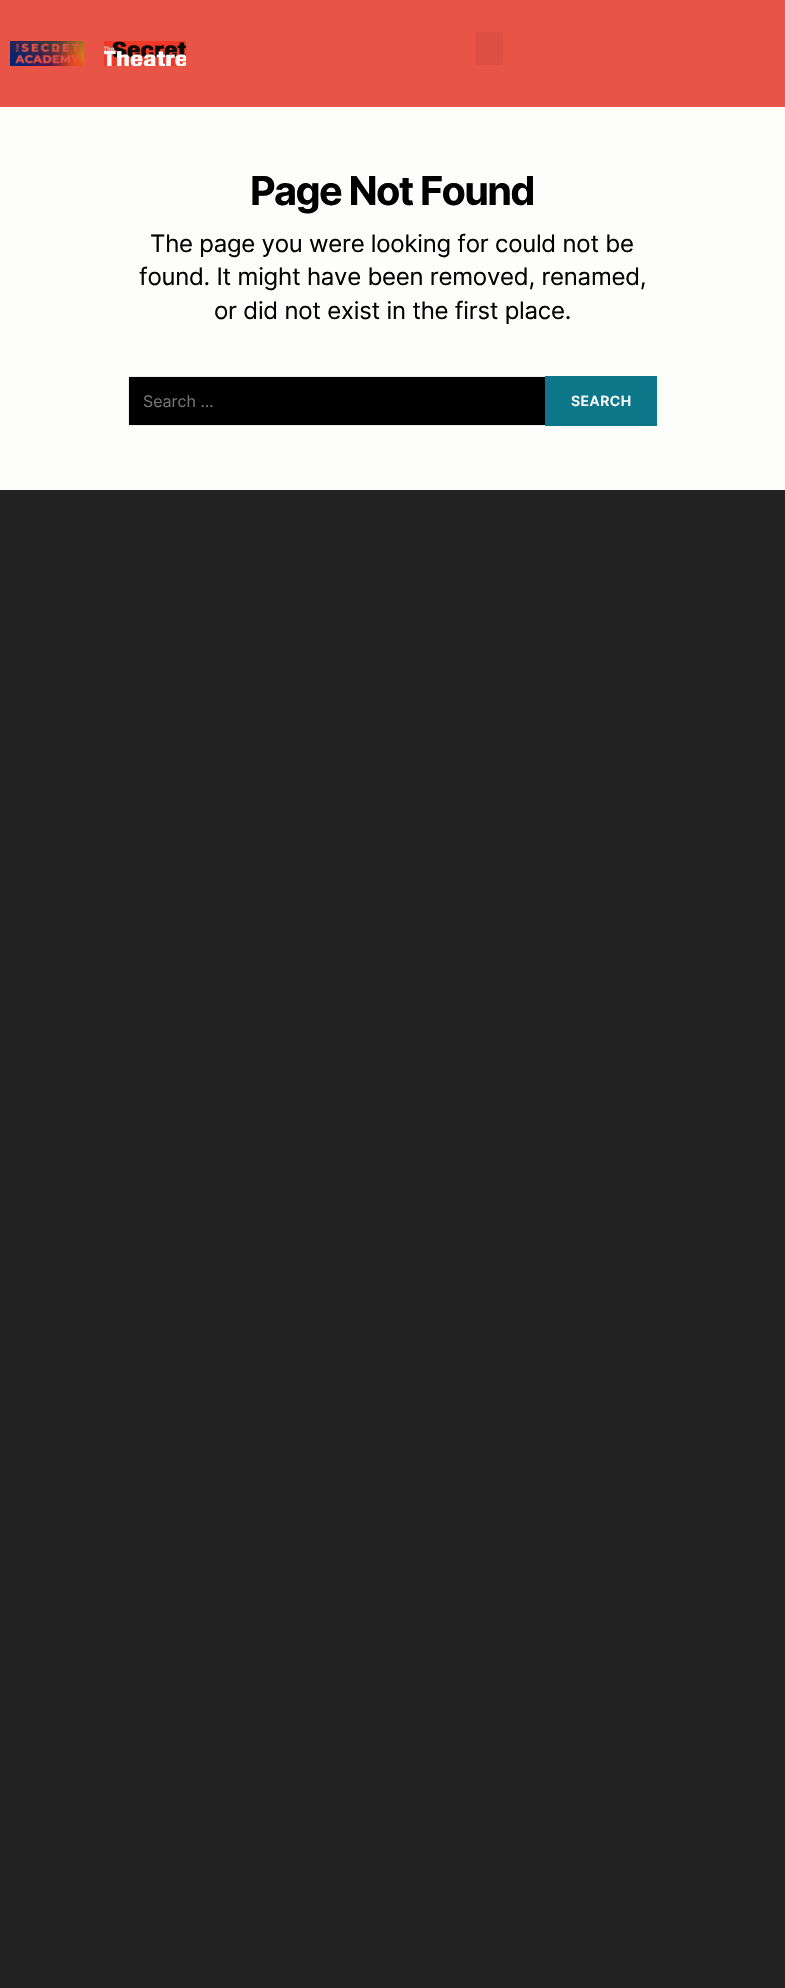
void draw(SkCanvas* canvas) {
	SkPaint paint;
	paint.setAntiAlias(true);
	auto spacedText = [&](const char* s, float x, float y, const SkFont& font, const SkPaint& ink, float letter, float word) {
		std::vector<SkGlyphID> glyphs(font.countText(s, strlen(s), SkTextEncoding::kUTF8));
		std::vector<float> xs(glyphs.size());
		font.textToGlyphs(s, strlen(s), SkTextEncoding::kUTF8, glyphs);
		font.getXPos(glyphs, xs, x);
		float extra = 0;
		for (size_t i = 0; i < glyphs.size(); i++) {
			xs[i] += extra;
			extra += letter + word * (glyphs[i] == font.unicharToGlyph(' '));
		}
		canvas->drawTextBlob(SkTextBlob::MakeFromPosHGlyphs(glyphs, xs, y, font), 0, 0, ink);
	};
	canvas->clear(0xff222222);
	paint.setColor(0xffe85446);
	canvas->drawRect(SkRect::MakeXYWH(0, 0, 785, 107), paint);
	canvas->drawImageRect(SkImages::DeferredFromEncodedData(SkData::MakeFromFileName("img1.png")), SkRect::MakeXYWH(10, 41, 74, 25), SkSamplingOptions());
	canvas->drawImageRect(SkImages::DeferredFromEncodedData(SkData::MakeFromFileName("img2.png")), SkRect::MakeXYWH(104, 41, 82, 25), SkSamplingOptions());
	paint.setColor(0xffdc5043);
	canvas->drawRoundRect(SkRect::MakeXYWH(475, 32, 28, 33), 3, 3, paint);
	paint.setColor(0xfffdfdfc);
	canvas->drawRect(SkRect::MakeXYWH(0, 107, 785, 383), paint);
	SkFont f1(fontMgr->matchFamilyStyle("Inter", SkFontStyle::Bold()), 39.75);
	f1.setSubpixel(true);
	paint.setColor(0xff000000);
	spacedText("Page Not Found", 250, 205, f1, paint, -1.7, 0);
	SkFont f2(fontMgr->matchFamilyStyle("Inter", SkFontStyle::Normal()), 24);
	f2.setSubpixel(true);
	spacedText("The page you were looking for could not be", 150, 252, f2, paint, -0.25, 0);
	spacedText("found. It might have been removed, renamed,", 139, 285, f2, paint, -0.25, 0);
	spacedText("or did not exist in the first place.", 214, 319, f2, paint, -0.25, 0);
	canvas->drawRect(SkRect::MakeXYWH(129, 377, 416, 48), paint);
	paint.setColor(0xffededed);
	canvas->drawRect(SkRect::MakeXYWH(128, 376, 417, 1), paint);
	canvas->drawRect(SkRect::MakeXYWH(128, 425, 417, 1), paint);
	canvas->drawRect(SkRect::MakeXYWH(128, 376, 1, 50), paint);
	SkFont f3(fontMgr->matchFamilyStyle("Inter", SkFontStyle::Normal()), 16);
	f3.setSubpixel(true);
	paint.setColor(0xff757575);
	canvas->drawString("Search …", 143, 407, f3, paint);
	paint.setColor(0xff0c7789);
	canvas->drawRect(SkRect::MakeXYWH(545, 376, 112, 50), paint);
	SkFont f4(fontMgr->matchFamilyStyle("Inter", SkFontStyle(600, SkFontStyle::kNormal_Width, SkFontStyle::kUpright_Slant)), 14);
	f4.setSubpixel(true);
	paint.setColor(0xffffffff);
	spacedText("SEARCH", 571, 406, f4, paint, 0.5, 0);
}
